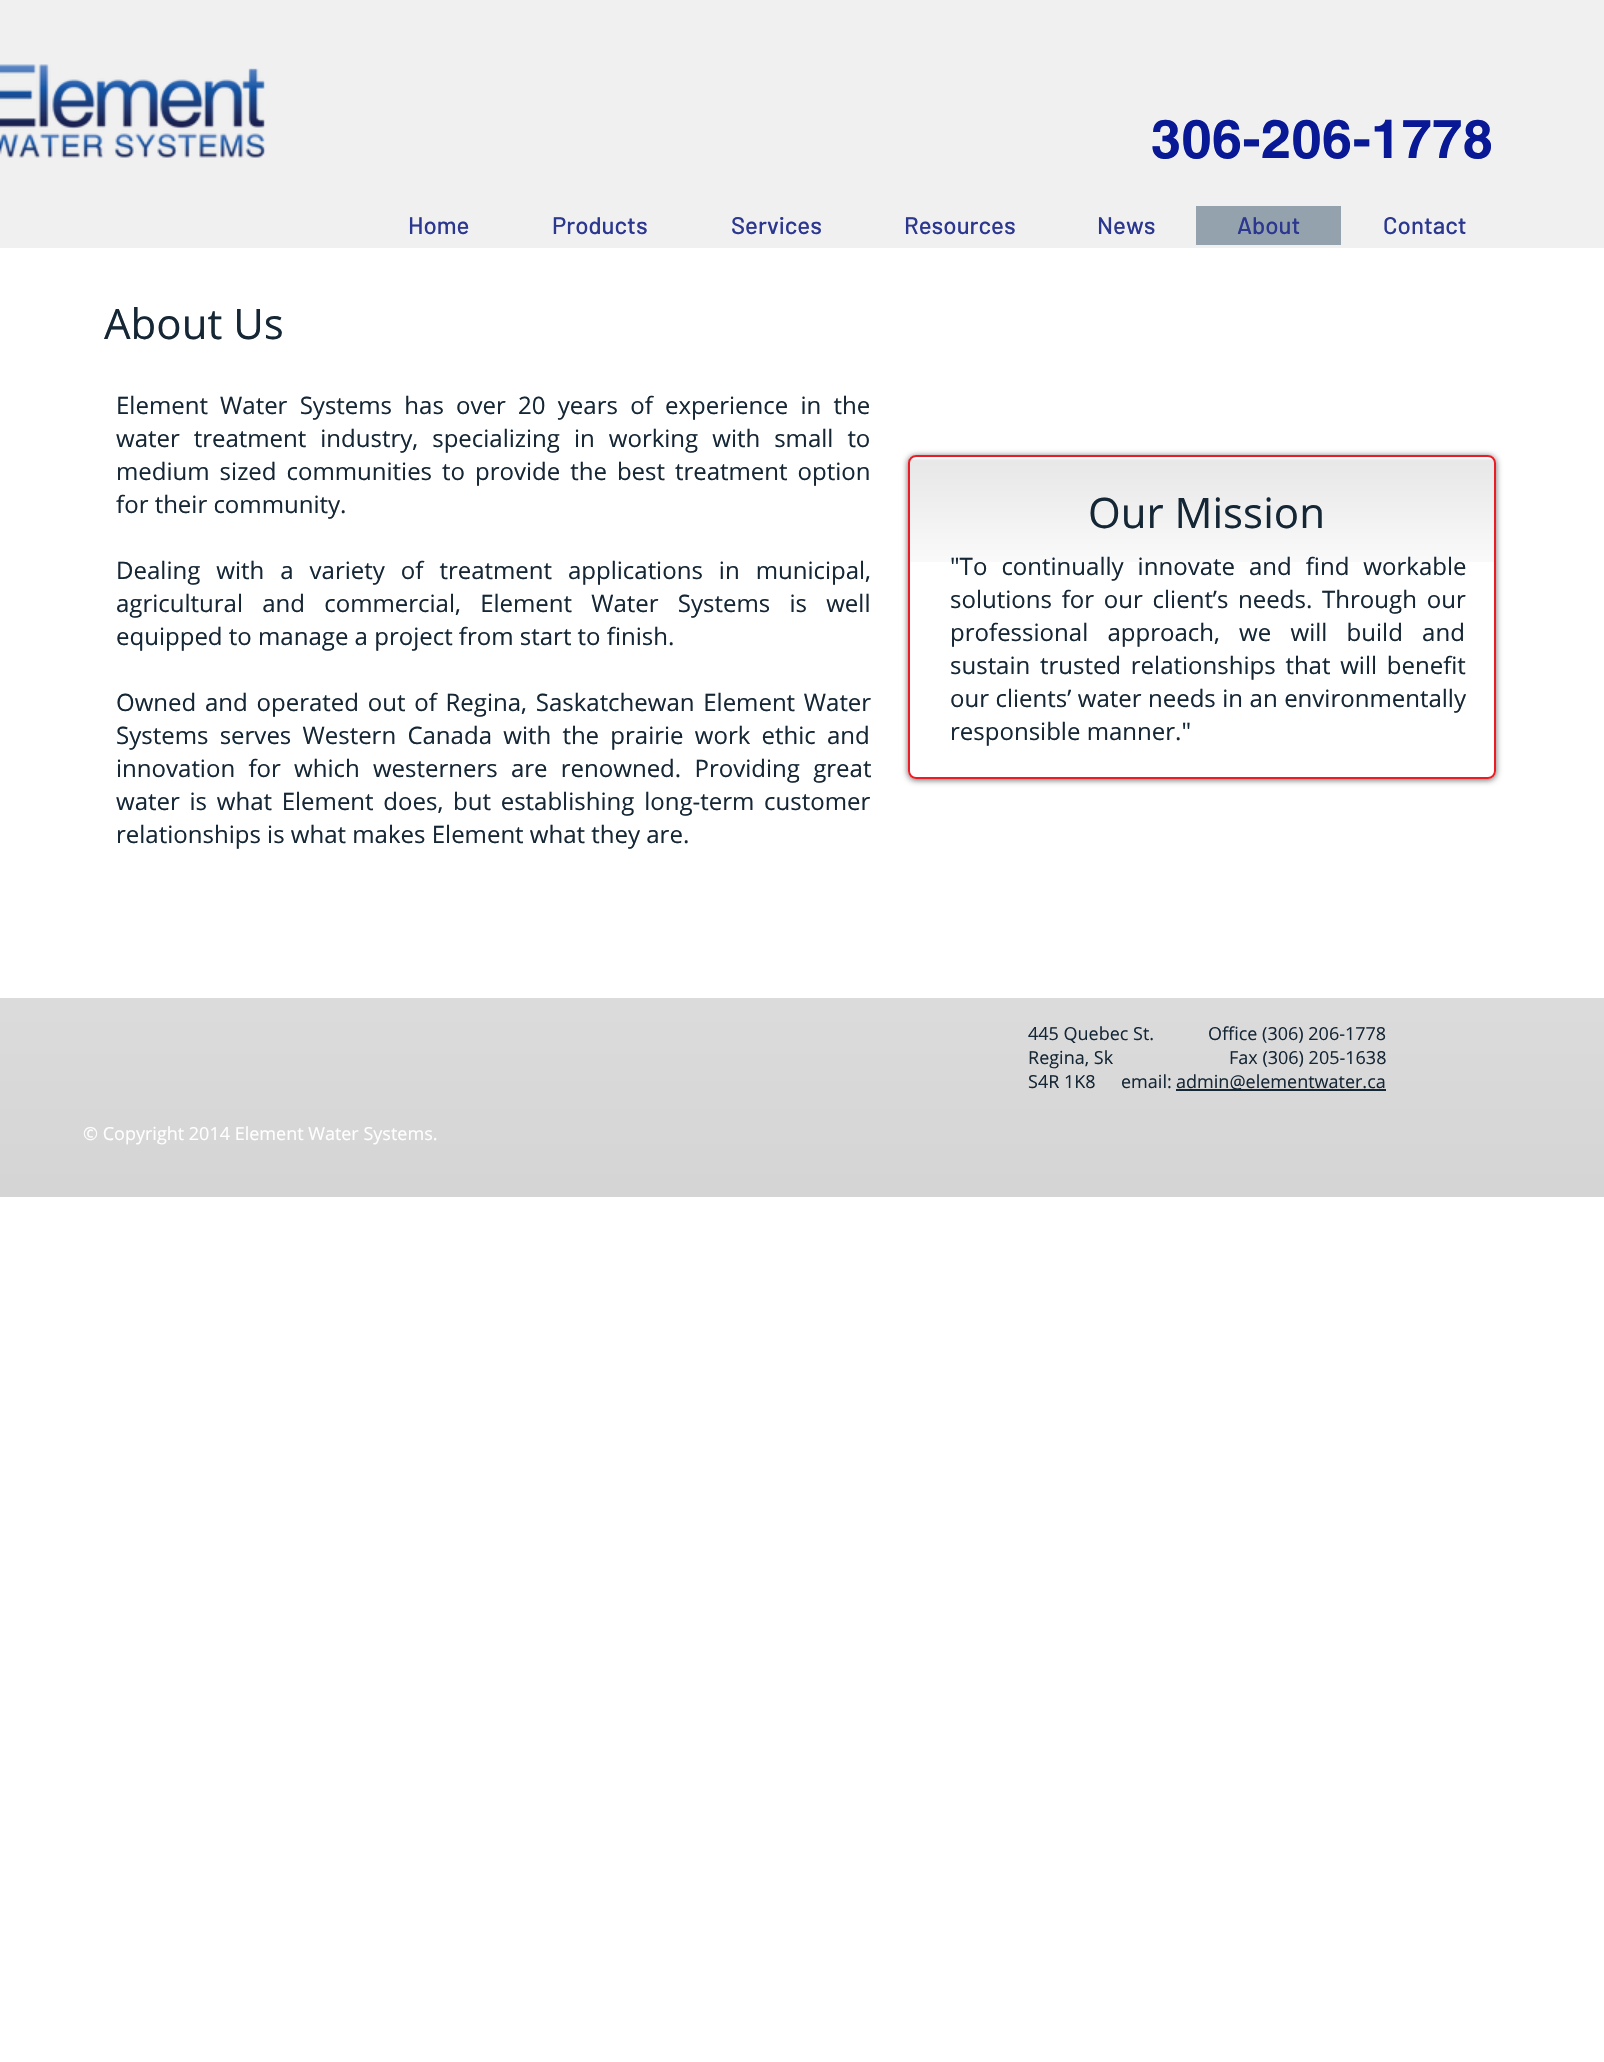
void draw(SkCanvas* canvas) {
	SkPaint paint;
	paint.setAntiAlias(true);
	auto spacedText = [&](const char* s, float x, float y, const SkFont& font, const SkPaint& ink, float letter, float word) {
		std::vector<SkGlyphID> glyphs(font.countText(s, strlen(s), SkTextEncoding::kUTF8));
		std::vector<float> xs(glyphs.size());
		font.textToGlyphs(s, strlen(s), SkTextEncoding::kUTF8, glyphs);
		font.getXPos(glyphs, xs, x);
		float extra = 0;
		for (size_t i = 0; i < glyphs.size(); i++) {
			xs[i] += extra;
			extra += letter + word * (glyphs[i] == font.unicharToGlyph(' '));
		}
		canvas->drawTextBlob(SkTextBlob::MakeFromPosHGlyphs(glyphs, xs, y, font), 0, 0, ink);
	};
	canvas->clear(0xffffffff);
	paint.setColor(0xfff0f0f0);
	canvas->drawRect(SkRect::MakeXYWH(0, 0, 1604, 248), paint);
	canvas->drawImageRect(SkImages::DeferredFromEncodedData(SkData::MakeFromFileName("img1.png")), SkRect::MakeXYWH(0, 64, 266, 94), SkSamplingOptions());
	SkFont f1(fontMgr->matchFamilyStyle("helvetica", SkFontStyle::Bold()), 54);
	f1.setSubpixel(true);
	paint.setColor(0xff091995);
	spacedText("306-206-1778", 1151, 158, f1, paint, 0.5, 0);
	SkFont f2(fontMgr->matchFamilyStyle("Barlow", SkFontStyle(500, SkFontStyle::kNormal_Width, SkFontStyle::kUpright_Slant)), 24);
	f2.setSubpixel(true);
	paint.setColor(0xff2c378f);
	canvas->drawString("Home", 408, 234, f2, paint);
	canvas->drawString("Products", 552, 234, f2, paint);
	canvas->drawString("Services", 731, 234, f2, paint);
	canvas->drawString("Resources", 904, 234, f2, paint);
	canvas->drawString("News", 1097, 234, f2, paint);
	paint.setColor(0xff94a2ae);
	canvas->drawRect(SkRect::MakeXYWH(1196, 206, 145, 39), paint);
	paint.setColor(0xff2c378f);
	canvas->drawString("About", 1237, 234, f2, paint);
	canvas->drawString("Contact", 1383, 234, f2, paint);
	SkFont f3(fontMgr->matchFamilyStyle("Open Sans", SkFontStyle::Normal()), 42);
	f3.setSubpixel(true);
	paint.setColor(0xff152635);
	canvas->drawString("About Us", 104, 339, f3, paint);
	SkFont f4(fontMgr->matchFamilyStyle("Open Sans", SkFontStyle::Normal()), 24);
	f4.setSubpixel(true);
	spacedText("Element Water Systems has over 20 years of experience in the", 116, 414, f4, paint, 0, 6);
	spacedText("water treatment industry, specializing in working with small to", 116, 447, f4, paint, 0, 7.75);
	spacedText("medium sized communities to provide the best treatment option", 116, 480, f4, paint, 0, 3.75);
	canvas->drawString("for their community.", 116, 513, f4, paint);
	spacedText("Dealing with a variety of treatment applications in municipal,", 116, 579, f4, paint, 0, 9.75);
	spacedText("agricultural and commercial, Element Water Systems is well", 116, 612, f4, paint, 0, 13);
	canvas->drawString("equipped to manage a project from start to finish.", 116, 645, f4, paint);
	spacedText("Owned and operated out of Regina, Saskatchewan Element Water", 116, 711, f4, paint, 0, 2.5);
	spacedText("Systems serves Western Canada with the prairie work ethic and", 116, 744, f4, paint, 0, 5);
	spacedText("innovation for which westerners are renowned. Providing great", 116, 777, f4, paint, 0, 7);
	spacedText("water is what Element does, but establishing long-term customer", 116, 810, f4, paint, 0, 3.5);
	canvas->drawString("relationships is what makes Element what they are.", 116, 843, f4, paint);
	paint.setColor(0x99000000);
	paint.setMaskFilter(SkMaskFilter::MakeBlur(kNormal_SkBlurStyle, 3));
	canvas->drawRoundRect(SkRect::MakeXYWH(908, 456, 588, 324), 8, 8, paint);
	paint.setMaskFilter(nullptr);
	paint.setColor(0xffffffff);
	canvas->drawRoundRect(SkRect::MakeXYWH(908, 455, 588, 324), 8, 8, paint);
	canvas->drawImageRect(SkImages::DeferredFromEncodedData(SkData::MakeFromFileName("img2.png")), SkRect::MakeXYWH(908, 459, 587, 103), SkSamplingOptions());
	paint.setStroke(true);
	paint.setStrokeWidth(2);
	paint.setColor(0xffed1c24);
	canvas->drawRoundRect(SkRect::MakeXYWH(909, 456, 586, 322), 7, 7, paint);
	paint.setStroke(false);
	paint.setColor(0xff152635);
	canvas->drawString("Our Mission", 1088, 528, f3, paint);
	spacedText("\"To continually innovate and find workable", 950, 575, f4, paint, 0, 7.75);
	spacedText("solutions for our client’s needs. Through our", 950, 608, f4, paint, 0, 3.5);
	spacedText("professional approach, we will build and", 950, 641, f4, paint, 0, 13);
	spacedText("sustain trusted relationships that will benefit", 950, 674, f4, paint, 0, 3.5);
	spacedText("our clients’ water needs in an environmentally", 950, 707, f4, paint, 0, 0.25);
	canvas->drawString("responsible manner.\"", 950, 740, f4, paint);
	paint.setColor(0xffcfcfcf);
	canvas->drawRect(SkRect::MakeXYWH(0, 998, 1604, 199), paint);
	canvas->drawImageRect(SkImages::DeferredFromEncodedData(SkData::MakeFromFileName("img3.png")), SkRect::MakeXYWH(0, 998, 1604, 199), SkSamplingOptions());
	SkFont f5(fontMgr->matchFamilyStyle("Open Sans", SkFontStyle::Normal()), 18);
	f5.setSubpixel(true);
	paint.setColor(0xff152635);
	canvas->drawString("445 Quebec St.", 1028, 1040, f5, paint);
	canvas->drawString("Regina, Sk", 1028, 1064, f5, paint);
	canvas->drawString("S4R 1K8", 1028, 1088, f5, paint);
	canvas->drawString("Office (306) 206-1778", 1208, 1040, f5, paint);
	canvas->drawString("Fax (306) 205-1638", 1229, 1064, f5, paint);
	canvas->drawString("email:", 1121, 1088, f5, paint);
	canvas->drawRect(SkRect::MakeXYWH(1176, 1089, 210, 2), paint);
	canvas->drawString("admin@elementwater.ca", 1176, 1088, f5, paint);
	paint.setColor(0xffffffff);
	canvas->drawString("© Copyright 2014 Element Water Systems.", 83, 1140, f5, paint);
}
